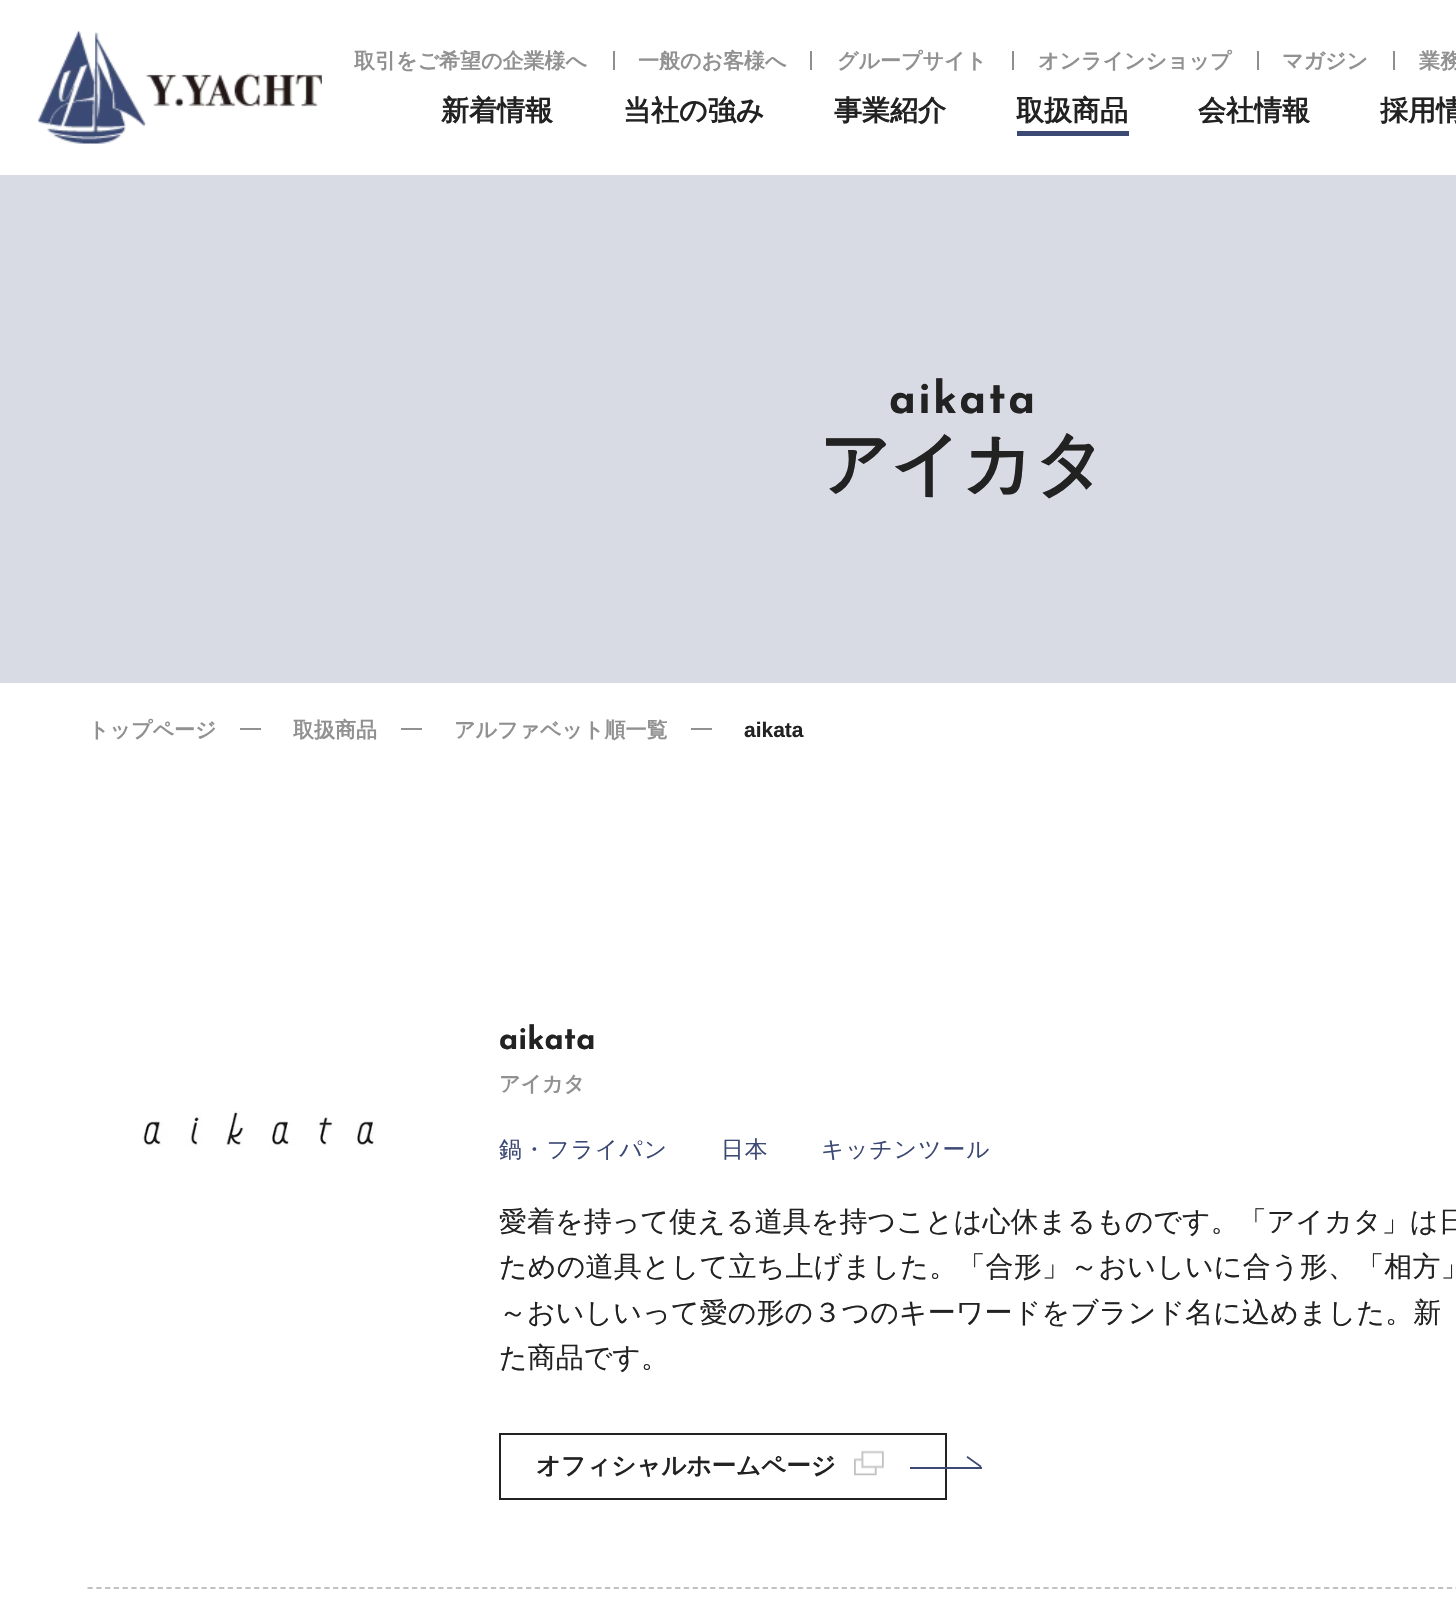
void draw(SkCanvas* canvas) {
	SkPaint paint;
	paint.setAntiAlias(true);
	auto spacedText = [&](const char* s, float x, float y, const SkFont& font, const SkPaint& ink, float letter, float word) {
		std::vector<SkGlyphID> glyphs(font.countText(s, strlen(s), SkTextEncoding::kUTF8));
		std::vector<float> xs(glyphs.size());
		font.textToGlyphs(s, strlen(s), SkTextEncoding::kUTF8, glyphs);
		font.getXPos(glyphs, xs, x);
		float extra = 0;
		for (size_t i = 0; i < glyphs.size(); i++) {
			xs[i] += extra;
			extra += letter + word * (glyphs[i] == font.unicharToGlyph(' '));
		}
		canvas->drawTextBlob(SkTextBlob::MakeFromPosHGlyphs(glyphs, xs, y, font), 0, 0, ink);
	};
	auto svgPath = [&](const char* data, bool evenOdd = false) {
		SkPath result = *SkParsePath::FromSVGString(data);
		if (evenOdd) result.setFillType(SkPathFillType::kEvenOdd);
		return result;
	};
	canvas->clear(0xffffffff);
	canvas->drawImageRect(SkImages::DeferredFromEncodedData(SkData::MakeFromFileName("img1.png")), SkRect::MakeXYWH(38, 31, 284, 113), SkSamplingOptions());
	SkFont f1(fontMgr->matchFamilyStyle("WenQuanYi Zen Hei", SkFontStyle::Bold()), 21);
	f1.setSubpixel(true);
	paint.setColor(0xff919191);
	canvas->drawString("取引をご希望の企業様へ", 354, 68, f1, paint);
	paint.setColor(0xff8e8e8e);
	canvas->drawRect(SkRect::MakeXYWH(613, 51, 2, 19), paint);
	paint.setColor(0xff919191);
	canvas->drawString("一般のお客様へ", 638, 68, f1, paint);
	paint.setColor(0xff8e8e8e);
	canvas->drawRect(SkRect::MakeXYWH(810, 51, 2, 19), paint);
	paint.setColor(0xff919191);
	canvas->drawString("グループサイト", 837, 68, f1, paint);
	paint.setColor(0xff8e8e8e);
	canvas->drawRect(SkRect::MakeXYWH(1012, 51, 2, 19), paint);
	paint.setColor(0xff919191);
	canvas->drawString("オンラインショップ", 1038, 68, f1, paint);
	paint.setColor(0xff8e8e8e);
	canvas->drawRect(SkRect::MakeXYWH(1257, 51, 2, 19), paint);
	paint.setColor(0xff919191);
	canvas->drawString("マガジン", 1282, 68, f1, paint);
	paint.setColor(0xff8e8e8e);
	canvas->drawRect(SkRect::MakeXYWH(1393, 51, 2, 19), paint);
	paint.setColor(0xff919191);
	canvas->drawString("業務", 1419, 68, f1, paint);
	SkFont f2(fontMgr->matchFamilyStyle("WenQuanYi Zen Hei", SkFontStyle::Bold()), 28);
	f2.setSubpixel(true);
	paint.setColor(0xff222222);
	canvas->drawString("新着情報", 441, 120, f2, paint);
	canvas->drawString("当社の強み", 623, 120, f2, paint);
	canvas->drawString("事業紹介", 834, 120, f2, paint);
	canvas->drawString("取扱商品", 1016, 120, f2, paint);
	paint.setColor(0xff3d4975);
	canvas->drawRect(SkRect::MakeXYWH(1017, 131, 112, 5), paint);
	paint.setColor(0xff222222);
	canvas->drawString("会社情報", 1198, 120, f2, paint);
	canvas->drawString("採用情", 1380, 120, f2, paint);
	paint.setColor(0xffd9dbe4);
	canvas->drawRect(SkRect::MakeXYWH(0, 175, 1456, 508), paint);
	SkFont f3(fontMgr->matchFamilyStyle("Josefin Sans", SkFontStyle::Bold()), 44);
	f3.setSubpixel(true);
	paint.setColor(0xff222222);
	spacedText("aikata", 889, 413, f3, paint, 2.25, 0);
	SkFont f4(fontMgr->matchFamilyStyle("WenQuanYi Zen Hei", SkFontStyle::Bold()), 70);
	f4.setSubpixel(true);
	canvas->drawString("アイカタ", 819, 488, f4, paint);
	paint.setColor(0xff919191);
	canvas->drawString("トップページ", 88, 737, f1, paint);
	canvas->drawRect(SkRect::MakeXYWH(240, 728, 21, 2), paint);
	canvas->drawString("取扱商品", 293, 737, f1, paint);
	canvas->drawRect(SkRect::MakeXYWH(401, 728, 21, 2), paint);
	canvas->drawString("アルファベット順一覧", 454, 737, f1, paint);
	canvas->drawRect(SkRect::MakeXYWH(691, 728, 21, 2), paint);
	SkFont f5(fontMgr->matchFamilyStyle("Liberation Sans", SkFontStyle::Bold()), 21);
	f5.setSubpixel(true);
	paint.setColor(0xff222222);
	canvas->drawString("aikata", 744, 737, f5, paint);
	paint.setStroke(true);
	paint.setStrokeWidth(1.8);
	paint.setColor(0xffc1c1c1);
	paint.setPathEffect(SkDashPathEffect::Make({{5.25f, 3.52f}}, 0));
	canvas->drawPath(svgPath("M87.5 1588H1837.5"), paint);
	paint.setPathEffect(nullptr);
	canvas->drawImageRect(SkImages::DeferredFromEncodedData(SkData::MakeFromFileName("img2.png")), SkRect::MakeXYWH(142, 1111, 234, 36), SkSamplingOptions());
	SkFont f6(fontMgr->matchFamilyStyle("Josefin Sans", SkFontStyle::Bold()), 31.5);
	f6.setSubpixel(true);
	paint.setStroke(false);
	paint.setColor(0xff222222);
	canvas->drawString("aikata", 499, 1049, f6, paint);
	paint.setColor(0xff919191);
	canvas->drawString("アイカタ", 499, 1091, f1, paint);
	SkFont f7(fontMgr->matchFamilyStyle("WenQuanYi Zen Hei", SkFontStyle(500, SkFontStyle::kNormal_Width, SkFontStyle::kUpright_Slant)), 22.75);
	f7.setSubpixel(true);
	paint.setColor(0xff3d4975);
	spacedText("鍋・フライパン", 499, 1157, f7, paint, 1, 0);
	spacedText("日本", 721, 1157, f7, paint, 1, 0);
	spacedText("キッチンツール", 821, 1157, f7, paint, 1, 0);
	SkFont f8(fontMgr->matchFamilyStyle("WenQuanYi Zen Hei", SkFontStyle(500, SkFontStyle::kNormal_Width, SkFontStyle::kUpright_Slant)), 28);
	f8.setSubpixel(true);
	paint.setColor(0xff222222);
	spacedText("愛着を持って使える道具を持つことは心休まるものです。「アイカタ」は日", 499, 1231, f8, paint, 0.05, 0);
	spacedText("ための道具として立ち上げました。「合形」～おいしいに合う形、「相方」", 499, 1276, f8, paint, 0.2, 0);
	spacedText("～おいしいって愛の形の３つのキーワードをブランド名に込めました。新", 499, 1322, f8, paint, 0.1, 0);
	canvas->drawString("た商品です。", 499, 1367, f8, paint);
	paint.setStroke(true);
	paint.setStrokeWidth(2);
	canvas->drawRect(SkRect::MakeXYWH(500, 1434, 446, 65), paint);
	SkFont f9(fontMgr->matchFamilyStyle("WenQuanYi Zen Hei", SkFontStyle::Bold()), 24.5);
	f9.setSubpixel(true);
	paint.setStroke(false);
	canvas->drawString("オフィシャルホームページ", 536, 1474, f9, paint);
	canvas->drawImageRect(SkImages::DeferredFromEncodedData(SkData::MakeFromFileName("img3.png")), SkRect::MakeXYWH(854, 1450, 30, 26), SkSamplingOptions());
	paint.setColor(0xff3d4975);
	canvas->drawRect(SkRect::MakeXYWH(910, 1467, 72, 2), paint);
	canvas->drawPath(svgPath("M967.5 1456L981.5 1466L980.5 1467.5L966.5 1457.5Z"), paint);
}
